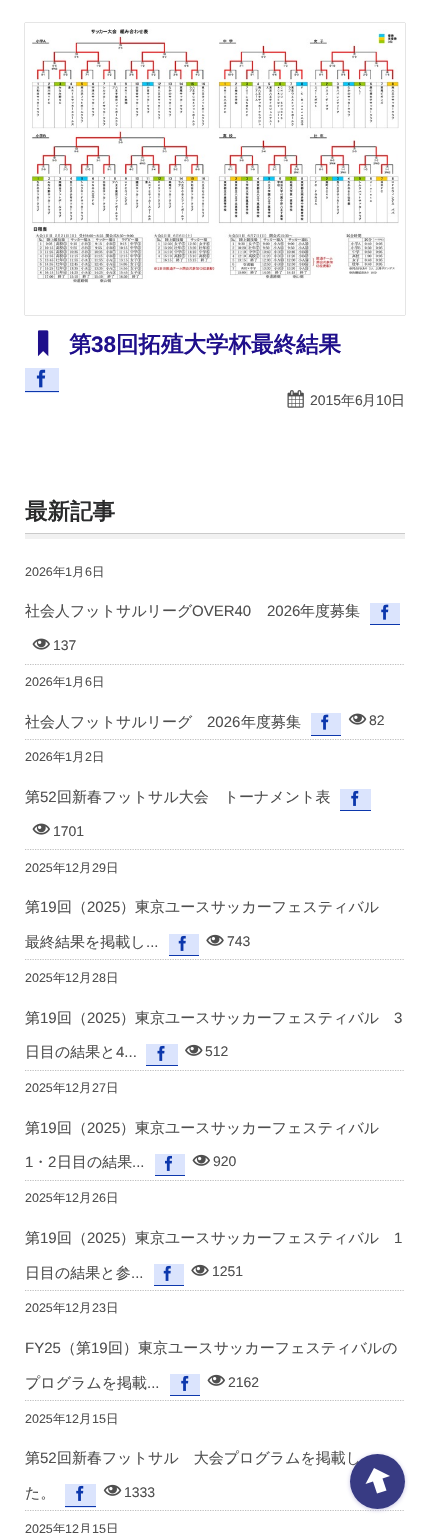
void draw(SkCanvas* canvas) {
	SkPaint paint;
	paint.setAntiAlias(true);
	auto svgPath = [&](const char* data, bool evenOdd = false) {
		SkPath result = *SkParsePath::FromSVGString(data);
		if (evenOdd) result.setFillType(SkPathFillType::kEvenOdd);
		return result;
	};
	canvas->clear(0xffffffff);
	canvas->save();
	canvas->clipPath(svgPath("M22 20H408V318H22ZM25 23H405V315H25Z", true), true);
	paint.setColor(0xff666666);
	paint.setMaskFilter(SkMaskFilter::MakeBlur(kNormal_SkBlurStyle, 0.5));
	canvas->drawRect(SkRect::MakeXYWH(25, 23, 380, 292), paint);
	paint.setMaskFilter(nullptr);
	canvas->restore();
	canvas->drawImageRect(SkImages::DeferredFromEncodedData(SkData::MakeFromFileName("img1.png")), SkRect::MakeXYWH(31, 29, 368, 254), SkSamplingOptions());
	canvas->drawImageRect(SkImages::DeferredFromEncodedData(SkData::MakeFromFileName("img2.png")), SkRect::MakeXYWH(37, 330, 12, 27), SkSamplingOptions());
	SkFont f1(fontMgr->matchFamilyStyle("WenQuanYi Zen Hei", SkFontStyle::Bold()), 22.5);
	f1.setSubpixel(true);
	paint.setColor(0xff1f0f8b);
	canvas->drawString("第", 69, 352, f1, paint);
	SkFont f2(fontMgr->matchFamilyStyle("Liberation Sans", SkFontStyle::Bold()), 22.5);
	f2.setSubpixel(true);
	canvas->drawString("38", 91, 352, f2, paint);
	canvas->drawString("回拓殖大学杯最終結果", 116, 352, f1, paint);
	paint.setColor(0xffdbe4fd);
	canvas->drawRect(SkRect::MakeXYWH(25, 368, 34, 25), paint);
	paint.setColor(0xff0c37ac);
	canvas->drawRect(SkRect::MakeXYWH(25, 391, 34, 1), paint);
	canvas->drawImageRect(SkImages::DeferredFromEncodedData(SkData::MakeFromFileName("img3.png")), SkRect::MakeXYWH(36, 369, 10, 19), SkSamplingOptions());
	canvas->drawImageRect(SkImages::DeferredFromEncodedData(SkData::MakeFromFileName("img4.png")), SkRect::MakeXYWH(287, 390, 17, 18), SkSamplingOptions());
	SkFont f3(fontMgr->matchFamilyStyle("Liberation Sans", SkFontStyle::Normal()), 14);
	f3.setSubpixel(true);
	paint.setColor(0xff4f4f4f);
	canvas->drawString("2015", 310, 405, f3, paint);
	SkFont f4(fontMgr->matchFamilyStyle("WenQuanYi Zen Hei", SkFontStyle(500, SkFontStyle::kNormal_Width, SkFontStyle::kUpright_Slant)), 14);
	f4.setSubpixel(true);
	canvas->drawString("年", 341, 405, f4, paint);
	canvas->drawString("6", 355, 405, f3, paint);
	canvas->drawString("月", 362, 405, f4, paint);
	canvas->drawString("10", 376, 405, f3, paint);
	canvas->drawString("日", 391, 405, f4, paint);
	paint.setColor(0xfff1f1f1);
	canvas->drawRect(SkRect::MakeXYWH(25, 534, 380, 5), paint);
	paint.setColor(0xffcacaca);
	canvas->drawRect(SkRect::MakeXYWH(25, 533, 380, 1), paint);
	paint.setColor(0xff292a2b);
	canvas->drawString("最新記事", 25, 519, f1, paint);
	paint.setStroke(true);
	paint.setStrokeWidth(1.2);
	paint.setColor(0xffbfbfbf);
	paint.setPathEffect(SkDashPathEffect::Make({{1.25f, 1.25f}}, 0));
	canvas->drawPath(svgPath("M25 664.5H405"), paint);
	paint.setPathEffect(nullptr);
	SkFont f5(fontMgr->matchFamilyStyle("Liberation Sans", SkFontStyle::Normal()), 12.5);
	f5.setSubpixel(true);
	paint.setStroke(false);
	paint.setColor(0xff4f4f4f);
	canvas->drawString("2026", 25, 576, f5, paint);
	SkFont f6(fontMgr->matchFamilyStyle("WenQuanYi Zen Hei", SkFontStyle(500, SkFontStyle::kNormal_Width, SkFontStyle::kUpright_Slant)), 12.5);
	f6.setSubpixel(true);
	canvas->drawString("年", 53, 576, f6, paint);
	canvas->drawString("1", 65, 576, f5, paint);
	canvas->drawString("月", 72, 576, f6, paint);
	canvas->drawString("6", 85, 576, f5, paint);
	canvas->drawString("日", 92, 576, f6, paint);
	SkFont f7(fontMgr->matchFamilyStyle("WenQuanYi Zen Hei", SkFontStyle(500, SkFontStyle::kNormal_Width, SkFontStyle::kUpright_Slant)), 15);
	f7.setSubpixel(true);
	canvas->drawString("社会人フットサルリーグ", 25, 616, f7, paint);
	SkFont f8(fontMgr->matchFamilyStyle("Liberation Sans", SkFontStyle::Normal()), 15);
	f8.setSubpixel(true);
	canvas->drawString("OVER40", 192, 616, f8, paint);
	canvas->drawString("2026", 267, 616, f8, paint);
	canvas->drawString("年度募集", 300, 616, f7, paint);
	paint.setColor(0xffdbe4fd);
	canvas->drawRect(SkRect::MakeXYWH(370, 603, 30, 21), paint);
	paint.setColor(0xff0c37ac);
	canvas->drawRect(SkRect::MakeXYWH(370, 624, 30, 1), paint);
	canvas->drawImageRect(SkImages::DeferredFromEncodedData(SkData::MakeFromFileName("img5.png")), SkRect::MakeXYWH(381, 604, 8, 16), SkSamplingOptions());
	canvas->drawImageRect(SkImages::DeferredFromEncodedData(SkData::MakeFromFileName("img6.png")), SkRect::MakeXYWH(32, 638, 18, 12), SkSamplingOptions());
	paint.setColor(0xff4f4f4f);
	canvas->drawString("137", 53, 650, f3, paint);
	paint.setStroke(true);
	paint.setColor(0xffbfbfbf);
	paint.setPathEffect(SkDashPathEffect::Make({{1.25f, 1.25f}}, 0));
	canvas->drawPath(svgPath("M25 739.5H405"), paint);
	paint.setPathEffect(nullptr);
	paint.setStroke(false);
	paint.setColor(0xff4f4f4f);
	canvas->drawString("2026", 25, 686, f5, paint);
	canvas->drawString("年", 53, 686, f6, paint);
	canvas->drawString("1", 65, 686, f5, paint);
	canvas->drawString("月", 72, 686, f6, paint);
	canvas->drawString("6", 85, 686, f5, paint);
	canvas->drawString("日", 92, 686, f6, paint);
	canvas->drawString("社会人フットサルリーグ", 25, 727, f7, paint);
	canvas->drawString("2026", 207, 727, f8, paint);
	canvas->drawString("年度募集", 241, 727, f7, paint);
	paint.setColor(0xffdbe4fd);
	canvas->drawRect(SkRect::MakeXYWH(311, 713, 30, 22), paint);
	paint.setColor(0xff0c37ac);
	canvas->drawRect(SkRect::MakeXYWH(311, 735, 30, 1), paint);
	canvas->drawImageRect(SkImages::DeferredFromEncodedData(SkData::MakeFromFileName("img5.png")), SkRect::MakeXYWH(321, 714, 8, 16), SkSamplingOptions());
	canvas->drawImageRect(SkImages::DeferredFromEncodedData(SkData::MakeFromFileName("img7.png")), SkRect::MakeXYWH(348, 713, 19, 12), SkSamplingOptions());
	paint.setColor(0xff4f4f4f);
	canvas->drawString("82", 369, 725, f3, paint);
	paint.setStroke(true);
	paint.setColor(0xffbfbfbf);
	paint.setPathEffect(SkDashPathEffect::Make({{1.25f, 1.25f}}, 0));
	canvas->drawPath(svgPath("M25 849.5H405"), paint);
	paint.setPathEffect(nullptr);
	paint.setStroke(false);
	paint.setColor(0xff4f4f4f);
	canvas->drawString("2026", 25, 761, f5, paint);
	canvas->drawString("年", 53, 761, f6, paint);
	canvas->drawString("1", 65, 761, f5, paint);
	canvas->drawString("月", 72, 761, f6, paint);
	canvas->drawString("2", 85, 761, f5, paint);
	canvas->drawString("日", 92, 761, f6, paint);
	canvas->drawString("第", 25, 802, f7, paint);
	canvas->drawString("52", 40, 802, f8, paint);
	canvas->drawString("回新春フットサル大会　トーナメント表", 57, 802, f7, paint);
	paint.setColor(0xffdbe4fd);
	canvas->drawRect(SkRect::MakeXYWH(340, 789, 31, 21), paint);
	paint.setColor(0xff0c37ac);
	canvas->drawRect(SkRect::MakeXYWH(340, 810, 31, 1), paint);
	canvas->drawImageRect(SkImages::DeferredFromEncodedData(SkData::MakeFromFileName("img8.png")), SkRect::MakeXYWH(351, 790, 8, 16), SkSamplingOptions());
	canvas->drawImageRect(SkImages::DeferredFromEncodedData(SkData::MakeFromFileName("img6.png")), SkRect::MakeXYWH(32, 823, 18, 12), SkSamplingOptions());
	paint.setColor(0xff4f4f4f);
	canvas->drawString("1701", 53, 836, f3, paint);
	paint.setStroke(true);
	paint.setColor(0xffbfbfbf);
	paint.setPathEffect(SkDashPathEffect::Make({{1.25f, 1.25f}}, 0));
	canvas->drawPath(svgPath("M25 959.5H405"), paint);
	paint.setPathEffect(nullptr);
	paint.setStroke(false);
	paint.setColor(0xff4f4f4f);
	canvas->drawString("2025", 25, 872, f5, paint);
	canvas->drawString("年", 53, 872, f6, paint);
	canvas->drawString("12", 65, 872, f5, paint);
	canvas->drawString("月", 79, 872, f6, paint);
	canvas->drawString("29", 92, 872, f5, paint);
	canvas->drawString("日", 106, 872, f6, paint);
	canvas->drawString("第", 25, 912, f7, paint);
	canvas->drawString("19", 40, 912, f8, paint);
	canvas->drawString("回（", 57, 912, f7, paint);
	canvas->drawString("2025", 87, 912, f8, paint);
	canvas->drawString("）東京ユースサッカーフェスティバル", 120, 912, f7, paint);
	canvas->drawString("最終結果を掲載し", 25, 947, f7, paint);
	canvas->drawString("...", 146, 947, f8, paint);
	paint.setColor(0xffdbe4fd);
	canvas->drawRect(SkRect::MakeXYWH(169, 934, 30, 21), paint);
	paint.setColor(0xff0c37ac);
	canvas->drawRect(SkRect::MakeXYWH(169, 955, 30, 1), paint);
	canvas->drawImageRect(SkImages::DeferredFromEncodedData(SkData::MakeFromFileName("img9.png")), SkRect::MakeXYWH(178, 935, 8, 16), SkSamplingOptions());
	canvas->drawImageRect(SkImages::DeferredFromEncodedData(SkData::MakeFromFileName("img10.png")), SkRect::MakeXYWH(206, 934, 18, 12), SkSamplingOptions());
	paint.setColor(0xff4f4f4f);
	canvas->drawString("743", 227, 946, f3, paint);
	paint.setStroke(true);
	paint.setColor(0xffbfbfbf);
	paint.setPathEffect(SkDashPathEffect::Make({{1.25f, 1.25f}}, 0));
	canvas->drawPath(svgPath("M25 1070.5H405"), paint);
	paint.setPathEffect(nullptr);
	paint.setStroke(false);
	paint.setColor(0xff4f4f4f);
	canvas->drawString("2025", 25, 982, f5, paint);
	canvas->drawString("年", 53, 982, f6, paint);
	canvas->drawString("12", 65, 982, f5, paint);
	canvas->drawString("月", 79, 982, f6, paint);
	canvas->drawString("28", 92, 982, f5, paint);
	canvas->drawString("日", 106, 982, f6, paint);
	canvas->drawString("第", 25, 1023, f7, paint);
	canvas->drawString("19", 40, 1023, f8, paint);
	canvas->drawString("回（", 57, 1023, f7, paint);
	canvas->drawString("2025", 87, 1023, f8, paint);
	canvas->drawString("）東京ユースサッカーフェスティバル", 120, 1023, f7, paint);
	canvas->drawString("3", 394, 1023, f8, paint);
	canvas->drawString("日目の結果と", 25, 1057, f7, paint);
	canvas->drawString("4...", 116, 1057, f8, paint);
	paint.setColor(0xffdbe4fd);
	canvas->drawRect(SkRect::MakeXYWH(146, 1044, 32, 21), paint);
	paint.setColor(0xff0c37ac);
	canvas->drawRect(SkRect::MakeXYWH(146, 1065, 32, 1), paint);
	canvas->drawImageRect(SkImages::DeferredFromEncodedData(SkData::MakeFromFileName("img11.png")), SkRect::MakeXYWH(157, 1045, 8, 16), SkSamplingOptions());
	canvas->drawImageRect(SkImages::DeferredFromEncodedData(SkData::MakeFromFileName("img12.png")), SkRect::MakeXYWH(185, 1044, 18, 12), SkSamplingOptions());
	paint.setColor(0xff4f4f4f);
	canvas->drawString("512", 205, 1056, f3, paint);
	paint.setStroke(true);
	paint.setColor(0xffbfbfbf);
	paint.setPathEffect(SkDashPathEffect::Make({{1.25f, 1.25f}}, 0));
	canvas->drawPath(svgPath("M25 1180.5H405"), paint);
	paint.setPathEffect(nullptr);
	paint.setStroke(false);
	paint.setColor(0xff4f4f4f);
	canvas->drawString("2025", 25, 1092, f5, paint);
	canvas->drawString("年", 53, 1092, f6, paint);
	canvas->drawString("12", 65, 1092, f5, paint);
	canvas->drawString("月", 79, 1092, f6, paint);
	canvas->drawString("27", 92, 1092, f5, paint);
	canvas->drawString("日", 106, 1092, f6, paint);
	canvas->drawString("第", 25, 1133, f7, paint);
	canvas->drawString("19", 40, 1133, f8, paint);
	canvas->drawString("回（", 57, 1133, f7, paint);
	canvas->drawString("2025", 87, 1133, f8, paint);
	canvas->drawString("）東京ユースサッカーフェスティバル", 120, 1133, f7, paint);
	canvas->drawString("1", 25, 1167, f8, paint);
	canvas->drawString("・", 33, 1167, f7, paint);
	canvas->drawString("2", 48, 1167, f8, paint);
	canvas->drawString("日目の結果", 57, 1167, f7, paint);
	paint.setColor(0xffdbe4fd);
	canvas->drawRect(SkRect::MakeXYWH(155, 1154, 30, 21), paint);
	paint.setColor(0xff0c37ac);
	canvas->drawRect(SkRect::MakeXYWH(155, 1175, 30, 1), paint);
	canvas->drawImageRect(SkImages::DeferredFromEncodedData(SkData::MakeFromFileName("img13.png")), SkRect::MakeXYWH(165, 1155, 7, 16), SkSamplingOptions());
	canvas->drawImageRect(SkImages::DeferredFromEncodedData(SkData::MakeFromFileName("img14.png")), SkRect::MakeXYWH(192, 1154, 18, 12), SkSamplingOptions());
	paint.setColor(0xff4f4f4f);
	canvas->drawString("920", 213, 1166, f3, paint);
	canvas->drawString("...", 132, 1167, f8, paint);
	paint.setStroke(true);
	paint.setColor(0xffbfbfbf);
	paint.setPathEffect(SkDashPathEffect::Make({{1.25f, 1.25f}}, 0));
	canvas->drawPath(svgPath("M25 1290.5H405"), paint);
	paint.setPathEffect(nullptr);
	paint.setStroke(false);
	paint.setColor(0xff4f4f4f);
	canvas->drawString("2025", 25, 1202, f5, paint);
	canvas->drawString("年", 53, 1202, f6, paint);
	canvas->drawString("12", 65, 1202, f5, paint);
	canvas->drawString("月", 79, 1202, f6, paint);
	canvas->drawString("26", 92, 1202, f5, paint);
	canvas->drawString("日", 106, 1202, f6, paint);
	canvas->drawString("第", 25, 1243, f7, paint);
	canvas->drawString("19", 40, 1243, f8, paint);
	canvas->drawString("回（", 57, 1243, f7, paint);
	canvas->drawString("2025", 87, 1243, f8, paint);
	canvas->drawString("）東京ユースサッカーフェスティバル", 120, 1243, f7, paint);
	canvas->drawString("1", 394, 1243, f8, paint);
	canvas->drawString("日目の結果と参", 25, 1278, f7, paint);
	canvas->drawString("...", 131, 1278, f8, paint);
	paint.setColor(0xffdbe4fd);
	canvas->drawRect(SkRect::MakeXYWH(154, 1264, 30, 21), paint);
	paint.setColor(0xff0c37ac);
	canvas->drawRect(SkRect::MakeXYWH(154, 1285, 30, 1), paint);
	canvas->drawImageRect(SkImages::DeferredFromEncodedData(SkData::MakeFromFileName("img9.png")), SkRect::MakeXYWH(163, 1265, 8, 16), SkSamplingOptions());
	canvas->drawImageRect(SkImages::DeferredFromEncodedData(SkData::MakeFromFileName("img10.png")), SkRect::MakeXYWH(191, 1264, 18, 12), SkSamplingOptions());
	paint.setColor(0xff4f4f4f);
	canvas->drawString("1251", 212, 1276, f3, paint);
	paint.setStroke(true);
	paint.setColor(0xffbfbfbf);
	paint.setPathEffect(SkDashPathEffect::Make({{1.25f, 1.25f}}, 0));
	canvas->drawPath(svgPath("M25 1400.5H405"), paint);
	paint.setPathEffect(nullptr);
	paint.setStroke(false);
	paint.setColor(0xff4f4f4f);
	canvas->drawString("2025", 25, 1312, f5, paint);
	canvas->drawString("年", 53, 1312, f6, paint);
	canvas->drawString("12", 65, 1312, f5, paint);
	canvas->drawString("月", 79, 1312, f6, paint);
	canvas->drawString("23", 92, 1312, f5, paint);
	canvas->drawString("日", 106, 1312, f6, paint);
	canvas->drawString("FY25", 25, 1353, f8, paint);
	canvas->drawString("（第", 61, 1353, f7, paint);
	canvas->drawString("19", 91, 1353, f8, paint);
	canvas->drawString("回）東京ユースサッカーフェスティバルの", 108, 1353, f7, paint);
	canvas->drawString("プログラムを掲載", 25, 1388, f7, paint);
	canvas->drawString("...", 147, 1388, f8, paint);
	paint.setColor(0xffdbe4fd);
	canvas->drawRect(SkRect::MakeXYWH(170, 1374, 30, 21), paint);
	paint.setColor(0xff0c37ac);
	canvas->drawRect(SkRect::MakeXYWH(170, 1395, 30, 1), paint);
	canvas->drawImageRect(SkImages::DeferredFromEncodedData(SkData::MakeFromFileName("img8.png")), SkRect::MakeXYWH(181, 1375, 8, 16), SkSamplingOptions());
	canvas->drawImageRect(SkImages::DeferredFromEncodedData(SkData::MakeFromFileName("img14.png")), SkRect::MakeXYWH(207, 1374, 18, 12), SkSamplingOptions());
	paint.setColor(0xff4f4f4f);
	canvas->drawString("2162", 228, 1387, f3, paint);
	paint.setStroke(true);
	paint.setColor(0xffbfbfbf);
	paint.setPathEffect(SkDashPathEffect::Make({{1.25f, 1.25f}}, 0));
	canvas->drawPath(svgPath("M25 1510.5H405"), paint);
	paint.setPathEffect(nullptr);
	paint.setStroke(false);
	paint.setColor(0xff4f4f4f);
	canvas->drawString("2025", 25, 1423, f5, paint);
	canvas->drawString("年", 53, 1423, f6, paint);
	canvas->drawString("12", 65, 1423, f5, paint);
	canvas->drawString("月", 79, 1423, f6, paint);
	canvas->drawString("15", 92, 1423, f5, paint);
	canvas->drawString("日", 106, 1423, f6, paint);
	canvas->drawString("第", 25, 1463, f7, paint);
	canvas->drawString("52", 40, 1463, f8, paint);
	canvas->drawString("回新春フットサル　大会プログラムを掲載し", 57, 1463, f7, paint);
	canvas->drawString("た。", 25, 1498, f7, paint);
	paint.setColor(0xffdbe4fd);
	canvas->drawRect(SkRect::MakeXYWH(65, 1484, 31, 24), paint);
	paint.setColor(0xff0c37ac);
	canvas->drawRect(SkRect::MakeXYWH(65, 1506, 31, 1), paint);
	canvas->drawImageRect(SkImages::DeferredFromEncodedData(SkData::MakeFromFileName("img8.png")), SkRect::MakeXYWH(76, 1485, 8, 16), SkSamplingOptions());
	canvas->drawImageRect(SkImages::DeferredFromEncodedData(SkData::MakeFromFileName("img15.png")), SkRect::MakeXYWH(103, 1484, 19, 12), SkSamplingOptions());
	paint.setColor(0xff4f4f4f);
	canvas->drawString("1333", 124, 1497, f3, paint);
	canvas->drawString("2025", 25, 1533, f5, paint);
	canvas->drawString("年", 53, 1533, f6, paint);
	canvas->drawString("12", 65, 1533, f5, paint);
	canvas->drawString("月", 79, 1533, f6, paint);
	canvas->drawString("15", 92, 1533, f5, paint);
	canvas->drawString("日", 106, 1533, f6, paint);
	canvas->save();
	canvas->clipPath(svgPath("M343 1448H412V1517H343ZM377.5 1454C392.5 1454 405 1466.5 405 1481.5C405 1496.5 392.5 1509 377.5 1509C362.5 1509 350 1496.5 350 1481.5C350 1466.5 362.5 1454 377.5 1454Z", true), true);
	paint.setColor(0xccbab7dd);
	paint.setMaskFilter(SkMaskFilter::MakeBlur(kNormal_SkBlurStyle, 2));
	canvas->drawRoundRect(SkRect::MakeXYWH(350, 1455, 55, 55), 27.5, 27.5, paint);
	paint.setMaskFilter(nullptr);
	canvas->restore();
	paint.setColor(0xcc060a64);
	canvas->drawCircle(377.5, 1481.5, 27.5, paint);
	paint.setColor(0xffffffff);
	canvas->drawPath(svgPath("M374 1468L365.5 1484L373 1481.5L377 1493.5L386.5 1490.5L382.5 1478.5L390 1476Z"), paint);
}
